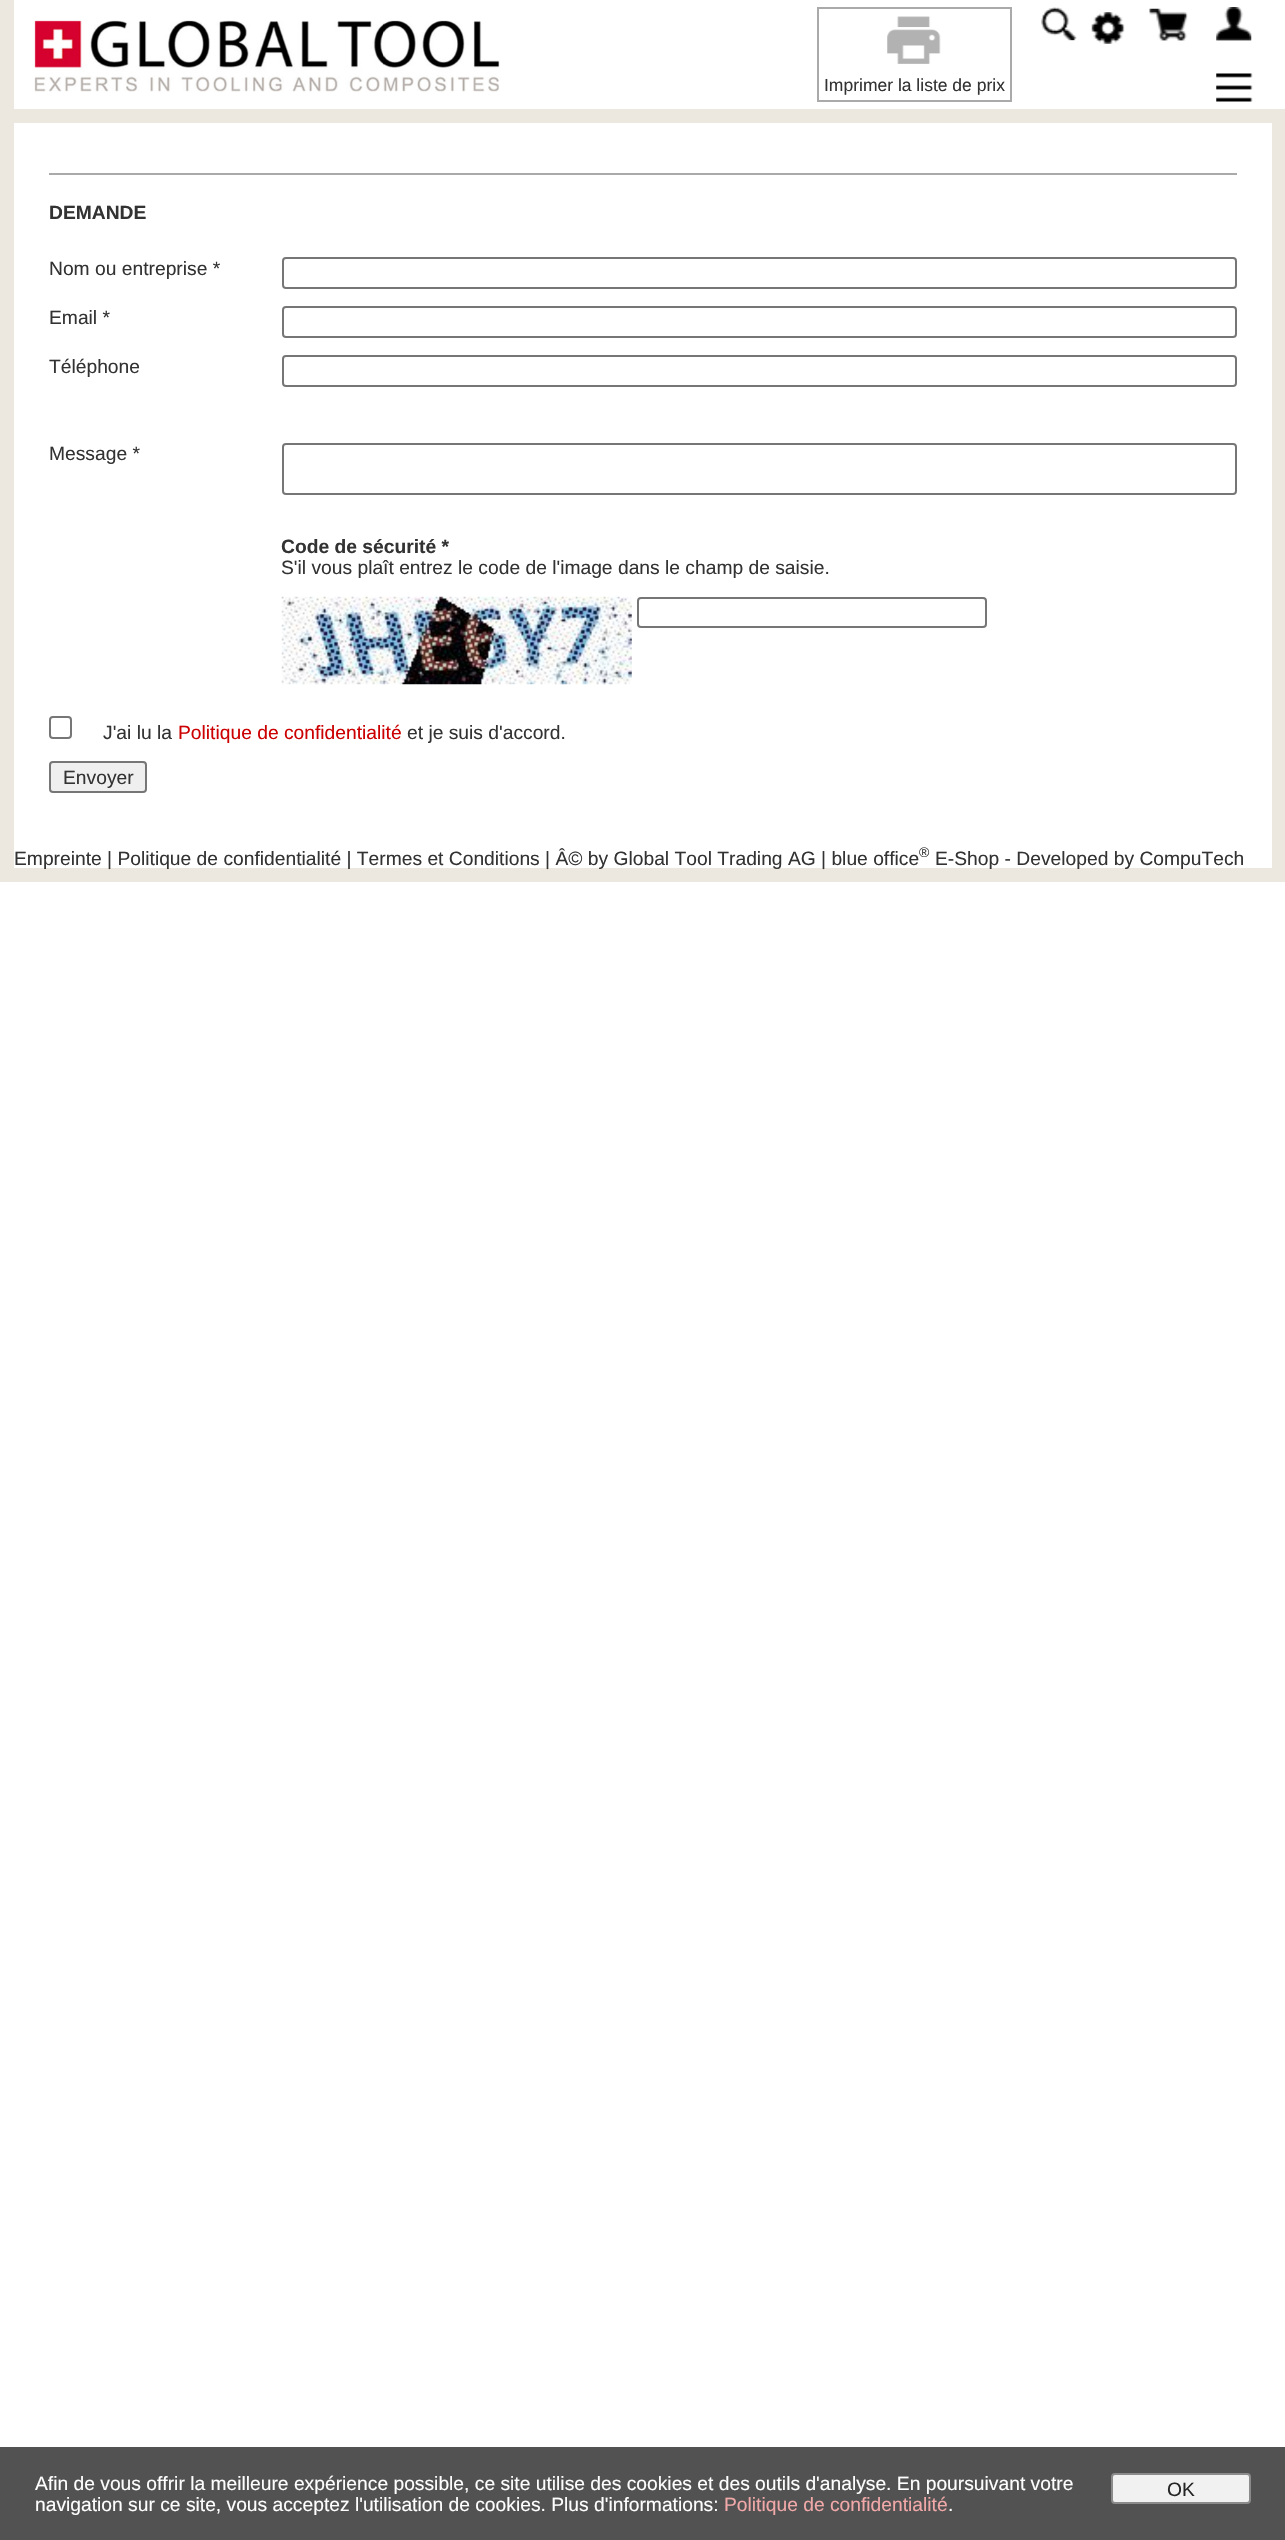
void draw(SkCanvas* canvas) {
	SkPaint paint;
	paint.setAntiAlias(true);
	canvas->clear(0xffffffff);
	paint.setStroke(true);
	paint.setStrokeWidth(14);
	paint.setColor(0xffede8df);
	canvas->drawRect(SkRect::MakeXYWH(7, 46, 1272, 829), paint);
	paint.setStroke(false);
	paint.setColor(0xffffffff);
	canvas->drawRect(SkRect::MakeXYWH(14, 39, 1271, 70), paint);
	paint.setColor(0xffede8df);
	canvas->drawRect(SkRect::MakeXYWH(14, 109, 1258, 14), paint);
	canvas->drawRect(SkRect::MakeXYWH(0, 0, 14, 39), paint);
	canvas->drawImageRect(SkImages::DeferredFromEncodedData(SkData::MakeFromFileName("img1.png")), SkRect::MakeXYWH(34, 20, 466, 72), SkSamplingOptions());
	paint.setStroke(true);
	paint.setStrokeWidth(2);
	paint.setColor(0xffaaaaaa);
	canvas->drawRect(SkRect::MakeXYWH(818, 8, 193, 93), paint);
	canvas->drawImageRect(SkImages::DeferredFromEncodedData(SkData::MakeFromFileName("img2.png")), SkRect::MakeXYWH(887, 16, 54, 48), SkSamplingOptions());
	SkFont f1(fontMgr->matchFamilyStyle("Liberation Sans", SkFontStyle::Normal()), 17.5);
	f1.setSubpixel(true);
	paint.setStroke(false);
	paint.setColor(0xff333333);
	canvas->drawString("Imprimer la liste de prix", 824, 91, f1, paint);
	canvas->drawImageRect(SkImages::DeferredFromEncodedData(SkData::MakeFromFileName("img3.png")), SkRect::MakeXYWH(1041, 7, 36, 34), SkSamplingOptions());
	canvas->drawImageRect(SkImages::DeferredFromEncodedData(SkData::MakeFromFileName("img4.png")), SkRect::MakeXYWH(1091, 12, 34, 32), SkSamplingOptions());
	canvas->drawImageRect(SkImages::DeferredFromEncodedData(SkData::MakeFromFileName("img5.png")), SkRect::MakeXYWH(1149, 8, 39, 33), SkSamplingOptions());
	canvas->drawImageRect(SkImages::DeferredFromEncodedData(SkData::MakeFromFileName("img6.png")), SkRect::MakeXYWH(1216, 7, 36, 34), SkSamplingOptions());
	canvas->drawImageRect(SkImages::DeferredFromEncodedData(SkData::MakeFromFileName("img7.png")), SkRect::MakeXYWH(1216, 73, 37, 29), SkSamplingOptions());
	paint.setColor(0xffaaaaaa);
	canvas->drawRect(SkRect::MakeXYWH(49, 173, 1188, 2), paint);
	SkFont f2(fontMgr->matchFamilyStyle("Liberation Sans", SkFontStyle::Bold()), 19.25);
	f2.setSubpixel(true);
	paint.setColor(0xff333333);
	canvas->drawString("DEMANDE", 49, 219, f2, paint);
	SkFont f3(fontMgr->matchFamilyStyle("Liberation Sans", SkFontStyle::Normal()), 19.25);
	f3.setSubpixel(true);
	canvas->drawString("Nom ou entreprise *", 49, 275, f3, paint);
	paint.setStroke(true);
	paint.setColor(0xff767676);
	canvas->drawRoundRect(SkRect::MakeXYWH(283, 258, 953, 30), 3, 3, paint);
	paint.setStroke(false);
	paint.setColor(0xff333333);
	canvas->drawString("Email *", 49, 324, f3, paint);
	paint.setStroke(true);
	paint.setColor(0xff767676);
	canvas->drawRoundRect(SkRect::MakeXYWH(283, 307, 953, 30), 3, 3, paint);
	paint.setStroke(false);
	paint.setColor(0xff333333);
	canvas->drawString("Téléphone", 49, 373, f3, paint);
	paint.setStroke(true);
	paint.setColor(0xff767676);
	canvas->drawRoundRect(SkRect::MakeXYWH(283, 356, 953, 30), 3, 3, paint);
	paint.setStroke(false);
	paint.setColor(0xff333333);
	canvas->drawString("Message *", 49, 460, f3, paint);
	paint.setStroke(true);
	paint.setColor(0xff767676);
	canvas->drawRoundRect(SkRect::MakeXYWH(283, 444, 953, 50), 3, 3, paint);
	paint.setStroke(false);
	paint.setColor(0xff333333);
	canvas->drawString("Code de sécurité *", 281, 553, f2, paint);
	canvas->drawString("S'il vous plaît entrez le code de l'image dans le champ de saisie.", 281, 574, f3, paint);
	canvas->drawImageRect(SkImages::DeferredFromEncodedData(SkData::MakeFromFileName("img8.png")), SkRect::MakeXYWH(281, 596, 351, 89), SkSamplingOptions());
	paint.setStroke(true);
	paint.setColor(0xff767676);
	canvas->drawRoundRect(SkRect::MakeXYWH(638, 598, 348, 29), 3, 3, paint);
	canvas->drawRoundRect(SkRect::MakeXYWH(50, 717, 21, 21), 3, 3, paint);
	paint.setStroke(false);
	paint.setColor(0xff333333);
	canvas->drawString("J'ai lu la", 103, 739, f3, paint);
	paint.setColor(0xffcc0000);
	canvas->drawString("Politique de confidentialité", 178, 739, f3, paint);
	paint.setColor(0xff333333);
	canvas->drawString("et je suis d'accord.", 407, 739, f3, paint);
	paint.setColor(0xffefefef);
	canvas->drawRoundRect(SkRect::MakeXYWH(50, 762, 96, 30), 3, 3, paint);
	paint.setStroke(true);
	paint.setColor(0xff767676);
	canvas->drawRoundRect(SkRect::MakeXYWH(50, 762, 96, 30), 3, 3, paint);
	paint.setStroke(false);
	paint.setColor(0xff333333);
	canvas->drawString("Envoyer", 63, 784, f3, paint);
	canvas->drawString("Empreinte | Politique de confidentialité | Termes et Conditions | Â© by Global Tool Trading AG | blue office", 14, 865, f3, paint);
	SkFont f4(fontMgr->matchFamilyStyle("Liberation Sans", SkFontStyle::Normal()), 14);
	f4.setSubpixel(true);
	canvas->drawString("®", 919, 857, f4, paint);
	canvas->drawString("E-Shop - Developed by CompuTech", 935, 865, f3, paint);
	paint.setColor(0xff525252);
	canvas->drawRect(SkRect::MakeXYWH(0, 2447, 1285, 93), paint);
	paint.setColor(0xffffffff);
	canvas->drawString("Afin de vous offrir la meilleure expérience possible, ce site utilise des cookies et des outils d'analyse. En poursuivant votre", 35, 2490, f3, paint);
	paint.setColor(0xfff1f1f1);
	canvas->drawRoundRect(SkRect::MakeXYWH(1112, 2474, 138, 29), 3, 3, paint);
	paint.setStroke(true);
	paint.setColor(0xff8b8b8b);
	canvas->drawRoundRect(SkRect::MakeXYWH(1112, 2474, 138, 29), 3, 3, paint);
	paint.setStroke(false);
	paint.setColor(0xff262626);
	canvas->drawString("OK", 1167, 2496, f3, paint);
	paint.setColor(0xffffffff);
	canvas->drawString("navigation sur ce site, vous acceptez l'utilisation de cookies. Plus d'informations:", 35, 2511, f3, paint);
	paint.setColor(0xfff1a8a8);
	canvas->drawString("Politique de confidentialité", 724, 2511, f3, paint);
	paint.setColor(0xffffffff);
	canvas->drawString(".", 948, 2511, f3, paint);
}
